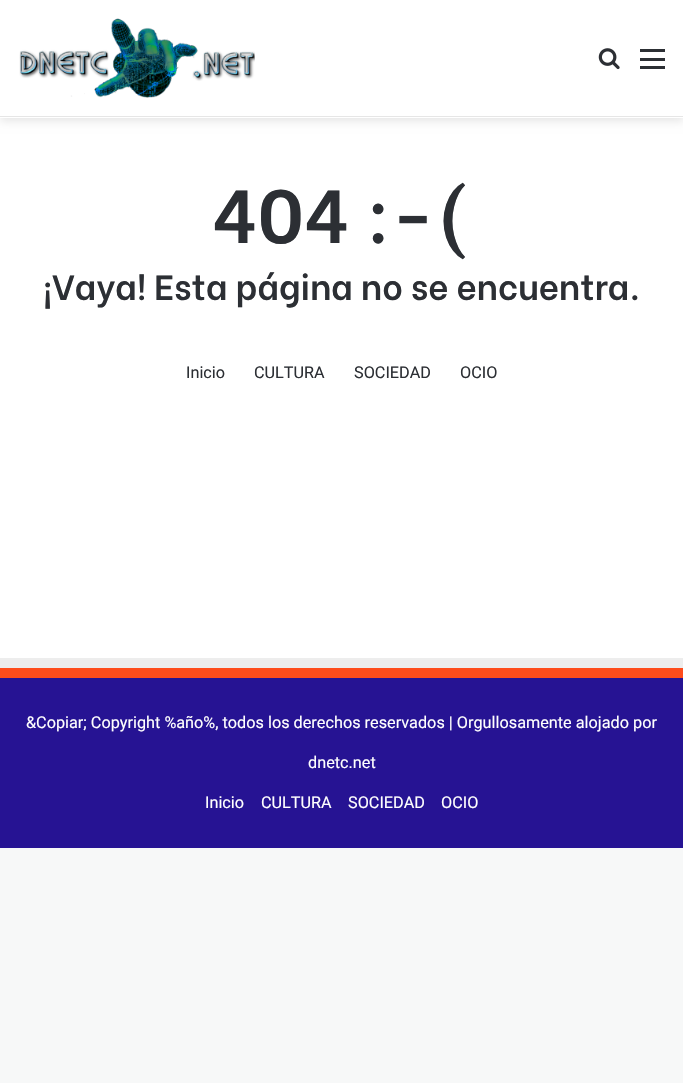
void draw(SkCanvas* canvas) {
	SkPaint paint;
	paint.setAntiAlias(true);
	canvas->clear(0xfff7f8f8);
	paint.setColor(0xffffffff);
	canvas->drawRect(SkRect::MakeXYWH(0, 118, 683, 540), paint);
	paint.setColor(0x1a000000);
	paint.setMaskFilter(SkMaskFilter::MakeBlur(kNormal_SkBlurStyle, 4.5));
	canvas->drawRect(SkRect::MakeXYWH(0, 4, 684, 117), paint);
	paint.setMaskFilter(nullptr);
	paint.setColor(0xffffffff);
	canvas->drawRect(SkRect::MakeXYWH(0, 0, 683, 118), paint);
	paint.setColor(0xffe6e6e6);
	canvas->drawRect(SkRect::MakeXYWH(0, 116, 683, 1), paint);
	canvas->drawImageRect(SkImages::DeferredFromEncodedData(SkData::MakeFromFileName("img1.png")), SkRect::MakeXYWH(19, 18, 236, 80), SkSamplingOptions());
	canvas->drawImageRect(SkImages::DeferredFromEncodedData(SkData::MakeFromFileName("img2.png")), SkRect::MakeXYWH(598, 48, 22, 22), SkSamplingOptions());
	paint.setColor(0xff2c2f34);
	canvas->drawRect(SkRect::MakeXYWH(640, 58, 25, 3), paint);
	canvas->drawRect(SkRect::MakeXYWH(640, 49, 25, 3), paint);
	canvas->drawRect(SkRect::MakeXYWH(640, 66, 25, 3), paint);
	SkFont f1(fontMgr->matchFamilyStyle("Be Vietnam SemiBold", SkFontStyle(600, SkFontStyle::kNormal_Width, SkFontStyle::kUpright_Slant)), 75);
	f1.setSubpixel(true);
	canvas->drawString("404 :-(", 212, 243, f1, paint);
	SkFont f2(fontMgr->matchFamilyStyle("Be Vietnam SemiBold", SkFontStyle(600, SkFontStyle::kNormal_Width, SkFontStyle::kUpright_Slant)), 35);
	f2.setSubpixel(true);
	canvas->drawString("¡Vaya! Esta página no se encuentra.", 43, 300, f2, paint);
	SkFont f3(fontMgr->matchFamilyStyle("Roboto", SkFontStyle::Normal()), 16.25);
	f3.setSubpixel(true);
	canvas->drawString("Inicio", 186, 378, f3, paint);
	canvas->drawString("CULTURA", 254, 378, f3, paint);
	canvas->drawString("SOCIEDAD", 354, 378, f3, paint);
	canvas->drawString("OCIO", 460, 378, f3, paint);
	paint.setColor(0xffededed);
	canvas->drawRect(SkRect::MakeXYWH(0, 658, 683, 10), paint);
	paint.setColor(0xfffe4c1c);
	canvas->drawRect(SkRect::MakeXYWH(0, 668, 683, 10), paint);
	paint.setColor(0xff261393);
	canvas->drawRect(SkRect::MakeXYWH(0, 678, 683, 170), paint);
	paint.setColor(0xffffffff);
	canvas->drawString("&Copiar; Copyright %año%, todos los derechos reservados | Orgullosamente alojado por", 26, 728, f3, paint);
	canvas->drawString("dnetc.net", 308, 768, f3, paint);
	canvas->drawString("Inicio", 205, 808, f3, paint);
	canvas->drawString("CULTURA", 261, 808, f3, paint);
	canvas->drawString("SOCIEDAD", 348, 808, f3, paint);
	canvas->drawString("OCIO", 441, 808, f3, paint);
}
